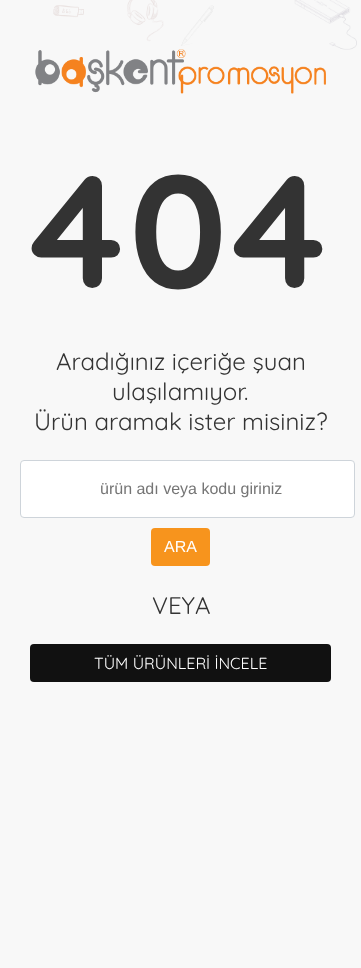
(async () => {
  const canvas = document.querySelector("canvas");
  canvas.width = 361;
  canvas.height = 968;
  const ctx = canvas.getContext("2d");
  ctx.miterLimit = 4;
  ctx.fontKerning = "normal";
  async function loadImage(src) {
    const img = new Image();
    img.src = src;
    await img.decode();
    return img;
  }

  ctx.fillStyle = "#f8f8f8";
  ctx.fillRect(0, 0, 361, 968);
  ctx.drawImage(await loadImage("img/1.png"), 53, 0, 304, 50);
  ctx.drawImage(await loadImage("img/2.png"), 35, 49, 291, 45);
  ctx.fillStyle = "#ffffff";
  ctx.beginPath();
  ctx.roundRect(20.5, 460.5, 334, 57, 3.5);
  ctx.fill();
  ctx.strokeStyle = "#ced4da";
  ctx.stroke();
  ctx.fillStyle = "#f7941d";
  ctx.beginPath();
  ctx.roundRect(151, 528, 59, 38, 4);
  ctx.fill();
  ctx.fillStyle = "#111111";
  ctx.beginPath();
  ctx.roundRect(30, 644, 301, 38, 4);
  ctx.fill();
  ctx.letterSpacing = "5px";
  ctx.font = "bold 160px Quicksand";
  ctx.fillStyle = "#333333";
  ctx.fillText("404", 30, 288);
  ctx.letterSpacing = "0px";
  ctx.font = "24px Quicksand";
  for (const [text, x, y] of [
    ["Aradığınız içeriğe şuan", 56, 370],
    ["ulaşılamıyor.", 112, 400],
    ["Ürün aramak ister misiniz?", 34, 430],
  ]) {
    ctx.fillText(text, x, y);
  }
  ctx.font = "16px Liberation Sans";
  ctx.fillStyle = "#757575";
  ctx.fillText("ürün adı veya kodu giriniz", 100, 494);
  ctx.fillStyle = "#ffffff";
  ctx.fillText("ARA", 164, 552);
  ctx.font = "24px Quicksand";
  ctx.fillStyle = "#333333";
  ctx.fillText("VEYA", 152, 614);
  ctx.font = "16px Quicksand";
  ctx.fillStyle = "#ffffff";
  ctx.fillText("TÜM ÜRÜNLERİ İNCELE", 94, 669);
})();
